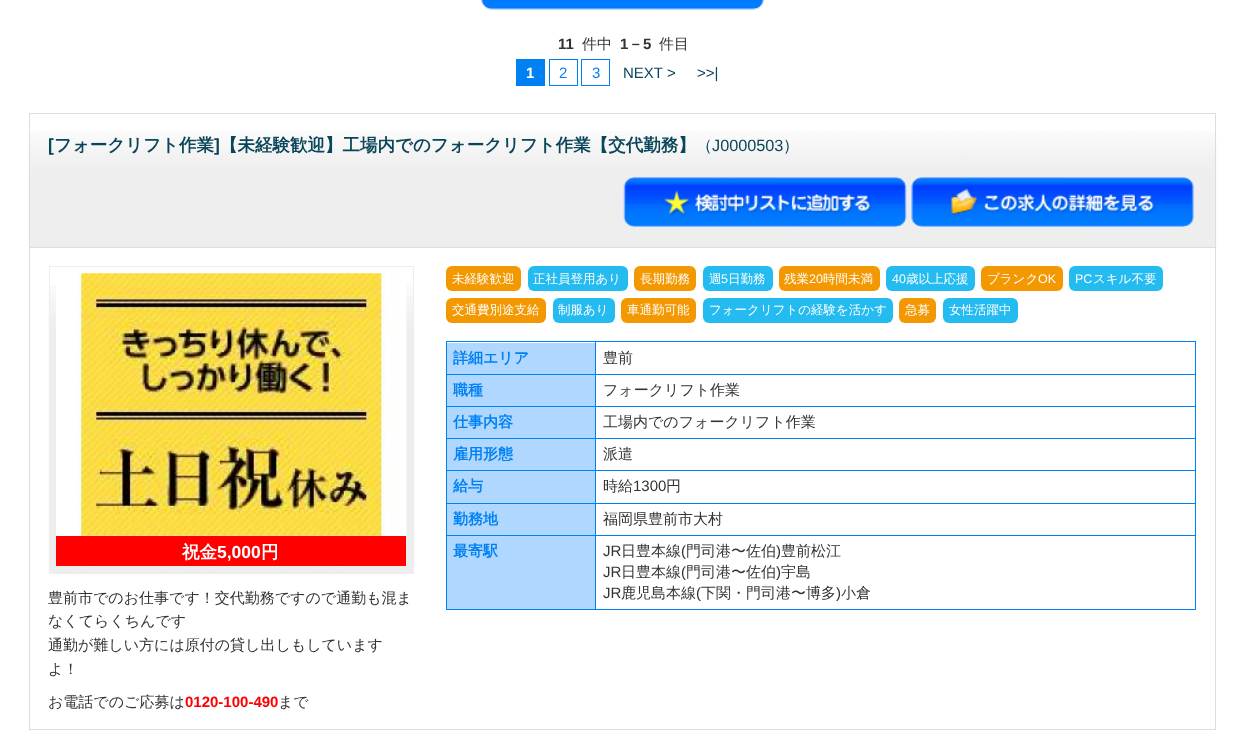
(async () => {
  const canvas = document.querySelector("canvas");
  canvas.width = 1243;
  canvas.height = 752;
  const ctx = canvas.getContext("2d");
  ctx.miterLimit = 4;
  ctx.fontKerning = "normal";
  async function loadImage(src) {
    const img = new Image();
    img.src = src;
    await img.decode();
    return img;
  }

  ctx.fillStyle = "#ffffff";
  ctx.fillRect(0, 0, 1243, 752);
  ctx.drawImage(await loadImage("img/1.png"), 481, 0, 283, 10);
  ctx.fillStyle = "#0081f3";
  ctx.fillRect(516, 59, 29, 27);
  ctx.strokeStyle = "#0081f3";
  ctx.strokeRect(549.5, 59.5, 28, 26);
  ctx.strokeRect(581.5, 59.5, 28, 26);
  ctx.drawImage(await loadImage("img/2.png"), 28, 131, 1189, 116);
  ctx.strokeStyle = "#dddddd";
  ctx.strokeRect(29.5, 113.5, 1186, 134);
  ctx.drawImage(await loadImage("img/3.png"), 623, 177, 284, 50);
  ctx.drawImage(await loadImage("img/4.png"), 911, 177, 283, 50);
  for (const [x, y, w, h, color] of [
    [1215, 248, 1, 482, "#dddddd"],
    [29, 729, 1187, 1, "#dddddd"],
    [29, 248, 1, 482, "#dddddd"],
  ]) {
    ctx.fillStyle = color;
    ctx.fillRect(x, y, w, h);
  }
  ctx.fillStyle = "#f39800";
  ctx.beginPath();
  ctx.roundRect(446, 266, 75, 25, 6);
  ctx.fill();
  ctx.fillStyle = "#24bbf1";
  ctx.beginPath();
  ctx.roundRect(528, 266, 100, 25, 6);
  ctx.fill();
  ctx.fillStyle = "#f39800";
  ctx.beginPath();
  ctx.roundRect(634, 266, 62, 25, 6);
  ctx.fill();
  ctx.fillStyle = "#24bbf1";
  ctx.beginPath();
  ctx.roundRect(703, 266, 70, 25, 6);
  ctx.fill();
  ctx.fillStyle = "#f39800";
  ctx.beginPath();
  ctx.roundRect(779, 266, 101, 25, 6);
  ctx.fill();
  ctx.fillStyle = "#24bbf1";
  ctx.beginPath();
  ctx.roundRect(886, 266, 89, 25, 6);
  ctx.fill();
  ctx.fillStyle = "#f39800";
  ctx.beginPath();
  ctx.roundRect(981, 266, 82, 25, 6);
  ctx.fill();
  ctx.fillStyle = "#24bbf1";
  ctx.beginPath();
  ctx.roundRect(1069, 266, 94, 25, 6);
  ctx.fill();
  ctx.fillStyle = "#f39800";
  ctx.beginPath();
  ctx.roundRect(446, 298, 100, 25, 6);
  ctx.fill();
  ctx.fillStyle = "#24bbf1";
  ctx.beginPath();
  ctx.roundRect(553, 298, 62, 25, 6);
  ctx.fill();
  ctx.fillStyle = "#f39800";
  ctx.beginPath();
  ctx.roundRect(621, 298, 75, 25, 6);
  ctx.fill();
  ctx.fillStyle = "#24bbf1";
  ctx.beginPath();
  ctx.roundRect(703, 298, 190, 25, 6);
  ctx.fill();
  ctx.fillStyle = "#f39800";
  ctx.beginPath();
  ctx.roundRect(899, 298, 37, 25, 6);
  ctx.fill();
  ctx.fillStyle = "#24bbf1";
  ctx.beginPath();
  ctx.roundRect(943, 298, 75, 25, 6);
  ctx.fill();
  for (const [x, y, w, h, color] of [
    [446, 341, 750, 1, "#0081f3"],
    [1195, 341, 1, 269, "#0081f3"],
    [446, 609, 750, 1, "#0081f3"],
    [446, 341, 1, 269, "#0081f3"],
    [447, 343, 148, 31, "#afd7ff"],
    [595, 535, 1, 75, "#0081f3"],
    [595, 535, 601, 1, "#0081f3"],
    [595, 503, 1, 33, "#0081f3"],
    [595, 503, 601, 1, "#0081f3"],
    [595, 470, 1, 34, "#0081f3"],
    [595, 470, 601, 1, "#0081f3"],
    [595, 438, 1, 33, "#0081f3"],
    [595, 438, 601, 1, "#0081f3"],
    [595, 406, 1, 33, "#0081f3"],
    [595, 406, 601, 1, "#0081f3"],
    [595, 374, 1, 34, "#0081f3"],
    [595, 374, 601, 1, "#0081f3"],
    [595, 341, 1, 34, "#0081f3"],
    [446, 374, 150, 1, "#0081f3"],
    [447, 375, 148, 31, "#afd7ff"],
    [446, 406, 150, 1, "#0081f3"],
    [447, 407, 148, 31, "#afd7ff"],
    [446, 438, 150, 1, "#0081f3"],
    [447, 439, 148, 31, "#afd7ff"],
    [446, 470, 150, 1, "#0081f3"],
    [447, 471, 148, 32, "#afd7ff"],
    [446, 503, 150, 1, "#0081f3"],
    [447, 504, 148, 31, "#afd7ff"],
    [446, 535, 150, 1, "#0081f3"],
    [447, 536, 148, 73, "#afd7ff"],
  ]) {
    ctx.fillStyle = color;
    ctx.fillRect(x, y, w, h);
  }
  ctx.drawImage(await loadImage("img/5.png"), 48, 285, 365, 289);
  ctx.strokeStyle = "#eeeeee";
  ctx.strokeRect(49.5, 266.5, 364, 307);
  ctx.drawImage(await loadImage("img/6.png"), 56, 273, 351, 263);
  ctx.drawImage(await loadImage("img/7.png"), 56, 273, 351, 263);
  ctx.fillStyle = "#ff0000";
  ctx.fillRect(56, 536, 350, 30);
  ctx.font = "bold 15px Liberation Sans";
  ctx.fillStyle = "#333333";
  ctx.fillText("11", 558, 49);
  ctx.font = "500 15px WenQuanYi Zen Hei";
  ctx.fillText("件中", 582, 49);
  ctx.font = "bold 15px Liberation Sans";
  ctx.fillText("1", 620, 49);
  ctx.font = "bold 15px WenQuanYi Zen Hei";
  ctx.fillText("－", 628, 49);
  ctx.font = "bold 15px Liberation Sans";
  ctx.fillText("5", 643, 49);
  ctx.font = "500 15px WenQuanYi Zen Hei";
  ctx.fillText("件目", 659, 49);
  ctx.font = "bold 15px Liberation Sans";
  ctx.fillStyle = "#ffffff";
  ctx.fillText("1", 526, 78);
  ctx.font = "15px Liberation Sans";
  ctx.fillStyle = "#0081f3";
  ctx.fillText("2", 559, 78);
  ctx.fillText("3", 592, 78);
  ctx.fillStyle = "#0a465a";
  ctx.fillText("NEXT >", 623, 78);
  ctx.fillText(">>|", 697, 78);
  ctx.font = "bold 17.5px Liberation Sans";
  ctx.fillText("[", 48, 151);
  ctx.font = "bold 17.5px WenQuanYi Zen Hei";
  ctx.fillText("フォークリフト作業", 54, 151);
  ctx.font = "bold 17.5px Liberation Sans";
  ctx.fillText("]", 214, 151);
  ctx.font = "bold 17.5px WenQuanYi Zen Hei";
  ctx.fillText("【未経験歓迎】工場内でのフォークリフト作業【交代勤務】", 220, 151);
  ctx.font = "500 16.25px WenQuanYi Zen Hei";
  ctx.fillText("（", 696, 151);
  ctx.font = "16.25px Liberation Sans";
  ctx.fillText("J0000503", 712, 151);
  ctx.font = "500 16.25px WenQuanYi Zen Hei";
  ctx.fillText("）", 783, 151);
  ctx.font = "500 12.5px WenQuanYi Zen Hei";
  ctx.fillStyle = "#ffffff";
  for (const [text, x, y] of [
    ["未経験歓迎", 452, 283],
    ["正社員登用あり", 533, 283],
    ["長期勤務", 640, 283],
    ["週", 709, 283],
  ]) {
    ctx.fillText(text, x, y);
  }
  ctx.font = "12.5px Liberation Sans";
  ctx.fillText("5", 721, 283);
  ctx.font = "500 12.5px WenQuanYi Zen Hei";
  ctx.fillText("日勤務", 728, 283);
  ctx.fillText("残業", 784, 283);
  ctx.font = "12.5px Liberation Sans";
  ctx.fillText("20", 809, 283);
  ctx.font = "500 12.5px WenQuanYi Zen Hei";
  ctx.fillText("時間未満", 823, 283);
  ctx.font = "12.5px Liberation Sans";
  ctx.fillText("40", 892, 283);
  ctx.font = "500 12.5px WenQuanYi Zen Hei";
  ctx.fillText("歳以上応援", 906, 283);
  ctx.fillText("ブランク", 987, 283);
  ctx.font = "12.5px Liberation Sans";
  ctx.fillText("OK", 1038, 283);
  ctx.fillText("PC", 1075, 283);
  ctx.font = "500 12.5px WenQuanYi Zen Hei";
  for (const [text, x, y] of [
    ["スキル不要", 1093, 283],
    ["交通費別途支給", 452, 314],
    ["制服あり", 558, 314],
    ["車通勤可能", 627, 314],
    ["フォークリフトの経験を活かす", 709, 314],
    ["急募", 905, 314],
    ["女性活躍中", 949, 314],
  ]) {
    ctx.fillText(text, x, y);
  }
  ctx.font = "bold 15px WenQuanYi Zen Hei";
  ctx.fillStyle = "#0081f3";
  ctx.fillText("詳細エリア", 453, 363);
  ctx.font = "500 15px WenQuanYi Zen Hei";
  ctx.fillStyle = "#333333";
  ctx.fillText("豊前", 603, 363);
  ctx.font = "bold 15px WenQuanYi Zen Hei";
  ctx.fillStyle = "#0081f3";
  ctx.fillText("職種", 453, 395);
  ctx.font = "500 15px WenQuanYi Zen Hei";
  ctx.fillStyle = "#333333";
  ctx.fillText("フォークリフト作業", 603, 395);
  ctx.font = "bold 15px WenQuanYi Zen Hei";
  ctx.fillStyle = "#0081f3";
  ctx.fillText("仕事内容", 453, 427);
  ctx.font = "500 15px WenQuanYi Zen Hei";
  ctx.fillStyle = "#333333";
  ctx.fillText("工場内でのフォークリフト作業", 603, 427);
  ctx.font = "bold 15px WenQuanYi Zen Hei";
  ctx.fillStyle = "#0081f3";
  ctx.fillText("雇用形態", 453, 459);
  ctx.font = "500 15px WenQuanYi Zen Hei";
  ctx.fillStyle = "#333333";
  ctx.fillText("派遣", 603, 459);
  ctx.font = "bold 15px WenQuanYi Zen Hei";
  ctx.fillStyle = "#0081f3";
  ctx.fillText("給与", 453, 491);
  ctx.font = "500 15px WenQuanYi Zen Hei";
  ctx.fillStyle = "#333333";
  ctx.fillText("時給", 603, 491);
  ctx.font = "15px Liberation Sans";
  ctx.fillText("1300", 633, 491);
  ctx.font = "500 15px WenQuanYi Zen Hei";
  ctx.fillText("円", 666, 491);
  ctx.font = "bold 15px WenQuanYi Zen Hei";
  ctx.fillStyle = "#0081f3";
  ctx.fillText("勤務地", 453, 524);
  ctx.font = "500 15px WenQuanYi Zen Hei";
  ctx.fillStyle = "#333333";
  ctx.fillText("福岡県豊前市大村", 603, 524);
  ctx.font = "bold 15px WenQuanYi Zen Hei";
  ctx.fillStyle = "#0081f3";
  ctx.fillText("最寄駅", 453, 556);
  ctx.font = "15px Liberation Sans";
  ctx.fillStyle = "#333333";
  ctx.fillText("JR", 603, 556);
  ctx.font = "500 15px WenQuanYi Zen Hei";
  ctx.fillText("日豊本線", 621, 556);
  ctx.font = "15px Liberation Sans";
  ctx.fillText("(", 681, 556);
  ctx.font = "500 15px WenQuanYi Zen Hei";
  ctx.fillText("門司港〜佐伯", 686, 556);
  ctx.font = "15px Liberation Sans";
  ctx.fillText(")", 776, 556);
  ctx.font = "500 15px WenQuanYi Zen Hei";
  ctx.fillText("豊前松江", 781, 556);
  ctx.font = "15px Liberation Sans";
  ctx.fillText("JR", 603, 577);
  ctx.font = "500 15px WenQuanYi Zen Hei";
  ctx.fillText("日豊本線", 621, 577);
  ctx.font = "15px Liberation Sans";
  ctx.fillText("(", 681, 577);
  ctx.font = "500 15px WenQuanYi Zen Hei";
  ctx.fillText("門司港〜佐伯", 686, 577);
  ctx.font = "15px Liberation Sans";
  ctx.fillText(")", 776, 577);
  ctx.font = "500 15px WenQuanYi Zen Hei";
  ctx.fillText("宇島", 781, 577);
  ctx.font = "15px Liberation Sans";
  ctx.fillText("JR", 603, 598);
  ctx.font = "500 15px WenQuanYi Zen Hei";
  ctx.fillText("鹿児島本線", 621, 598);
  ctx.font = "15px Liberation Sans";
  ctx.fillText("(", 696, 598);
  ctx.font = "500 15px WenQuanYi Zen Hei";
  ctx.fillText("下関・門司港〜博多", 701, 598);
  ctx.font = "15px Liberation Sans";
  ctx.fillText(")", 836, 598);
  ctx.font = "500 15px WenQuanYi Zen Hei";
  ctx.fillText("小倉", 841, 598);
  ctx.font = "bold 17.5px WenQuanYi Zen Hei";
  ctx.fillStyle = "#ffffff";
  ctx.fillText("祝金", 182, 558);
  ctx.font = "bold 17.5px Liberation Sans";
  ctx.fillText("5,000", 217, 558);
  ctx.font = "bold 17.5px WenQuanYi Zen Hei";
  ctx.fillText("円", 261, 558);
  ctx.font = "500 15px WenQuanYi Zen Hei";
  ctx.fillStyle = "#333333";
  for (const [text, x, y] of [
    ["豊前市でのお仕事です！交代勤務ですので通勤も混ま", 48, 603],
    ["なくてらくちんです", 48, 626],
    ["通勤が難しい方には原付の貸し出しもしています", 48, 650],
    ["よ！", 48, 674],
    ["お電話でのご応募は", 48, 707],
  ]) {
    ctx.fillText(text, x, y);
  }
  ctx.font = "bold 15px Liberation Sans";
  ctx.fillStyle = "#ff0000";
  ctx.fillText("0120-100-490", 185, 707);
  ctx.font = "500 15px WenQuanYi Zen Hei";
  ctx.fillStyle = "#333333";
  ctx.fillText("まで", 278, 707);
})();
